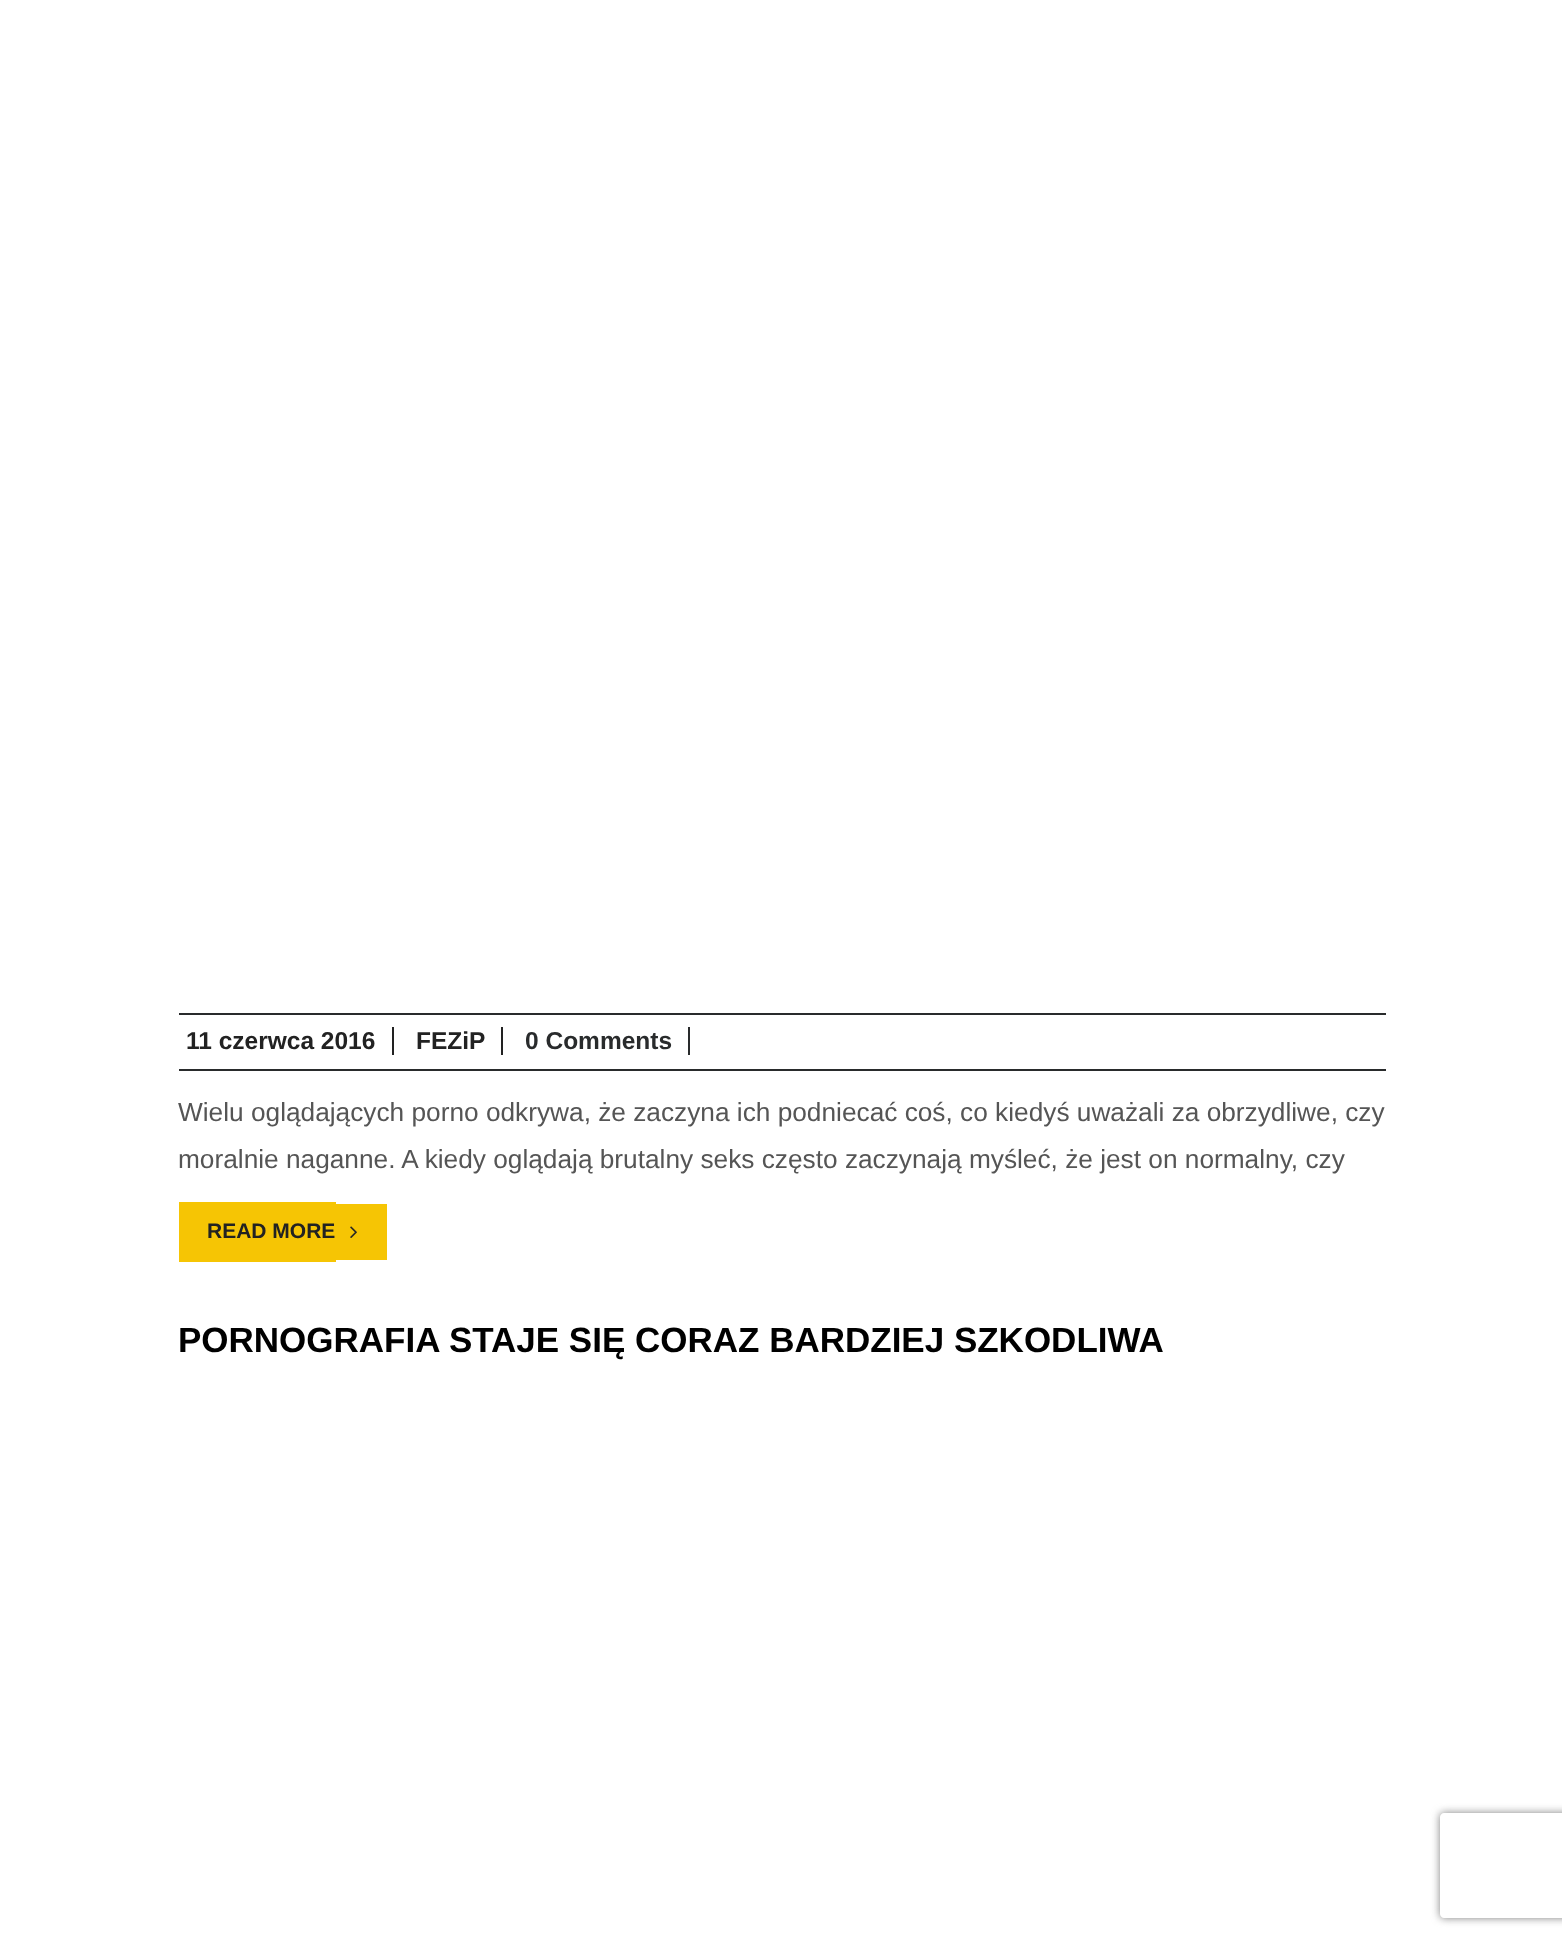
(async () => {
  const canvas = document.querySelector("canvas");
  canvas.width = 1562;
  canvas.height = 1941;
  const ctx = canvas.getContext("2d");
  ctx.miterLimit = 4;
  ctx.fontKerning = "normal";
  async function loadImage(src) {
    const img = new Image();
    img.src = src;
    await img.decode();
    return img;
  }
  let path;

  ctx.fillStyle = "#ffffff";
  ctx.fillRect(0, 0, 1562, 1941);
  for (const [x, y, w, h, color] of [
    [179, 1013, 1207, 2, "#292b2c"],
    [179, 1069, 1207, 2, "#292b2c"],
    [392, 1027, 2, 28, "#222222"],
    [501, 1027, 2, 28, "#222222"],
    [688, 1027, 2, 28, "#292b2c"],
    [179, 1202, 157, 60, "#f6c504"],
    [336, 1204, 51, 56, "#f6c504"],
  ]) {
    ctx.fillStyle = color;
    ctx.fillRect(x, y, w, h);
  }
  ctx.drawImage(await loadImage("img/1.png"), 350, 1226, 7, 12);
  ctx.save();
  path = new Path2D("M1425 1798H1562V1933H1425ZM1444 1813H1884C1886 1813 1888 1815 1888 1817V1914C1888 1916 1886 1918 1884 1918H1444C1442 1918 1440 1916 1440 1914V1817C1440 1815 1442 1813 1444 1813Z");
  ctx.clip(path, "evenodd");
  ctx.fillStyle = "#808080";
  ctx.filter = "blur(4.5px)";
  ctx.beginPath();
  ctx.roundRect(1440, 1813, 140, 105, 4);
  ctx.fill();
  ctx.filter = "none";
  ctx.restore();
  ctx.font = "bold 24.5px Liberation Sans";
  ctx.fillStyle = "#222222";
  ctx.fillText("11 czerwca 2016", 186, 1049);
  ctx.fillText("FEZiP", 416, 1049);
  ctx.fillStyle = "#292b2c";
  ctx.fillText("0 Comments", 525, 1049);
  ctx.font = "26.25px Liberation Sans";
  ctx.fillStyle = "#555555";
  ctx.fillText("Wielu oglądających porno odkrywa, że zaczyna ich podniecać coś, co kiedyś uważali za obrzydliwe, czy", 178, 1121);
  ctx.fillText("moralnie naganne. A kiedy oglądają brutalny seks często zaczynają myśleć, że jest on normalny, czy", 178, 1168);
  ctx.font = "bold 21px Liberation Sans";
  ctx.fillStyle = "#222222";
  ctx.fillText("READ MORE", 207, 1238);
  ctx.font = "bold 35px Liberation Sans";
  ctx.fillStyle = "#000000";
  ctx.fillText("PORNOGRAFIA STAJE SIĘ CORAZ BARDZIEJ SZKODLIWA", 178, 1352);
})();
